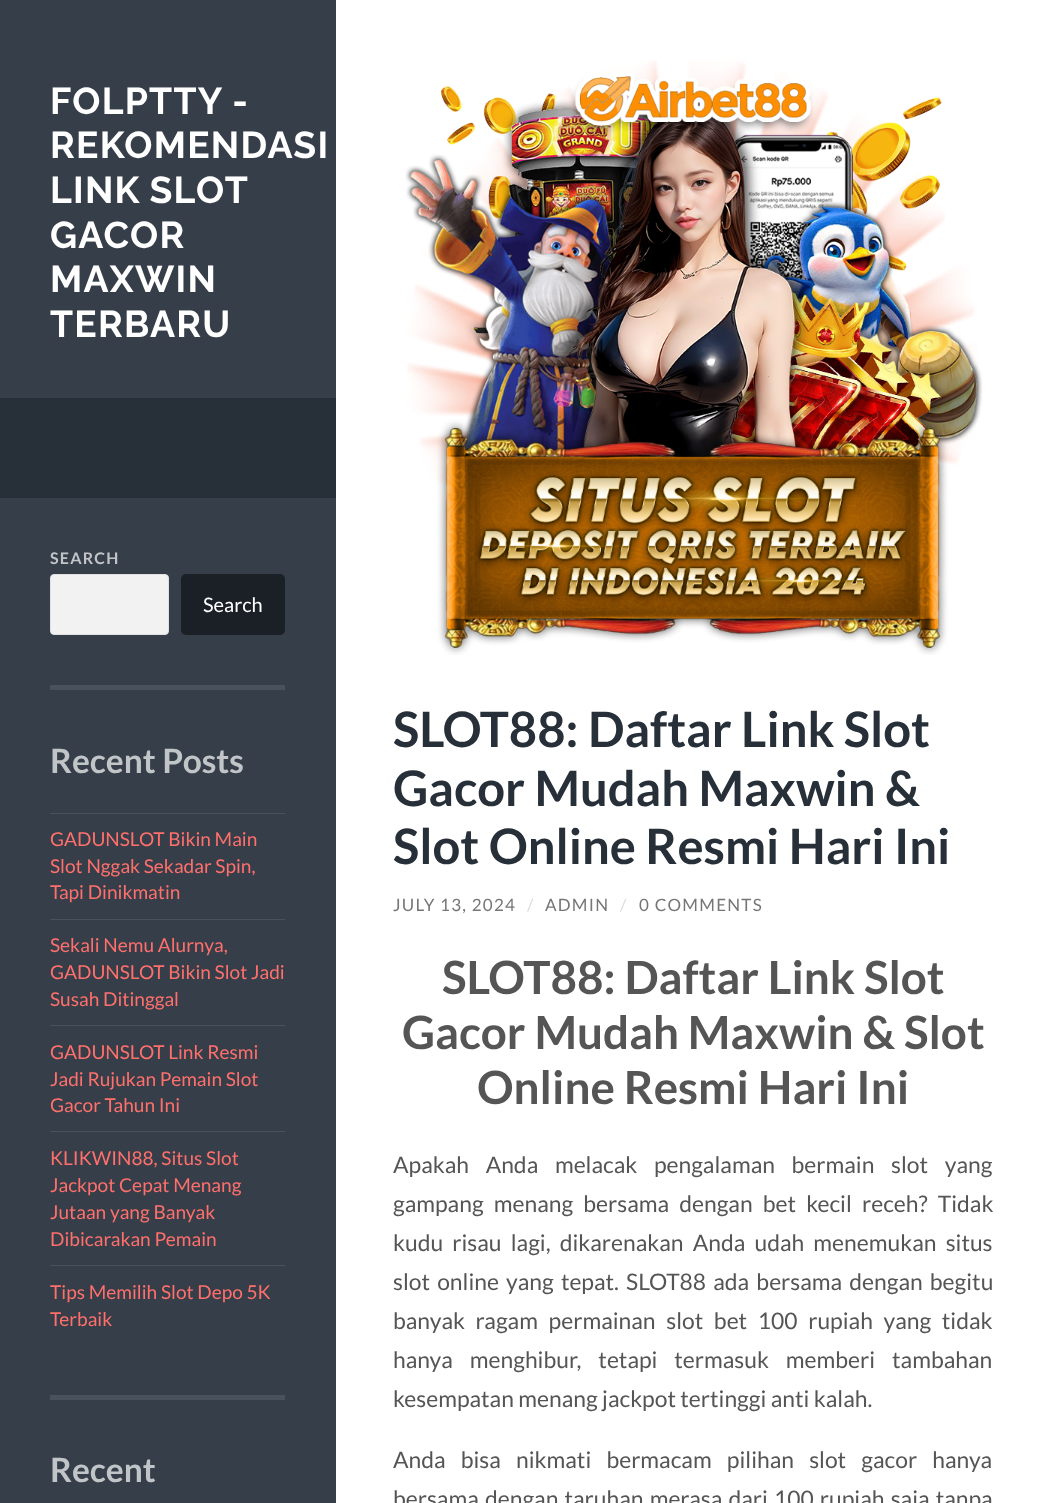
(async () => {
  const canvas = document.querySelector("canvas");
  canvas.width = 1050;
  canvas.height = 1503;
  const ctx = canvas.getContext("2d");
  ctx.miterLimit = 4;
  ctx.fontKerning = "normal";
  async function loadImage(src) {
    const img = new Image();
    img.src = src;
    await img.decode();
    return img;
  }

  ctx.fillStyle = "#353e49";
  ctx.fillRect(0, 0, 1050, 1503);
  ctx.fillStyle = "#272f38";
  ctx.fillRect(0, 398, 336, 100);
  ctx.fillStyle = "#49515b";
  ctx.fillRect(50, 685, 235, 5);
  ctx.fillStyle = "#f2f2f2";
  ctx.beginPath();
  ctx.roundRect(50.5, 574.5, 118, 60, 3.5);
  ctx.fill();
  ctx.strokeStyle = "#e1e1e3";
  ctx.stroke();
  ctx.fillStyle = "#1b2027";
  ctx.beginPath();
  ctx.roundRect(181, 574, 104, 61, 5);
  ctx.fill();
  for (const [x, y, w, h, color] of [
    [50, 1395, 235, 5, "#49515b"],
    [50, 813, 235, 1, "#49515b"],
    [50, 919, 235, 1, "#49515b"],
    [50, 1025, 235, 1, "#49515b"],
    [50, 1131, 235, 1, "#49515b"],
    [50, 1265, 235, 1, "#49515b"],
    [336, 0, 714, 1503, "#ffffff"],
  ]) {
    ctx.fillStyle = color;
    ctx.fillRect(x, y, w, h);
  }
  ctx.drawImage(await loadImage("img/1.png"), 405, 60, 578, 595);
  ctx.letterSpacing = "1.25px";
  ctx.font = "100 37.25px Raleway";
  ctx.fillText("FOLPTTY -", 50, 114);
  ctx.fillText("REKOMENDASI", 50, 158);
  ctx.wordSpacing = "-1px";
  ctx.fillText("LINK SLOT", 50, 203);
  ctx.wordSpacing = "0px";
  for (const [text, x, y] of [
    ["GACOR", 50, 248],
    ["MAXWIN", 50, 292],
    ["TERBARU", 50, 337],
  ]) {
    ctx.fillText(text, x, y);
  }
  ctx.font = "bold 16px Lato";
  ctx.fillStyle = "#c2c5c8";
  ctx.fillText("SEARCH", 50, 564);
  ctx.letterSpacing = "0px";
  ctx.font = "20px Lato";
  ctx.fillStyle = "#ffffff";
  ctx.fillText("Search", 203, 612);
  ctx.font = "bold 33.5px Lato";
  ctx.fillStyle = "#c2c5c8";
  ctx.fillText("Recent Posts", 50, 773);
  ctx.font = "19.1px Lato";
  ctx.fillStyle = "#ff706c";
  for (const [text, x, y] of [
    ["GADUNSLOT Bikin Main", 50, 846],
    ["Slot Nggak Sekadar Spin,", 50, 873],
    ["Tapi Dinikmatin", 50, 899],
    ["Sekali Nemu Alurnya,", 50, 952],
    ["GADUNSLOT Bikin Slot Jadi", 50, 979],
    ["Susah Ditinggal", 50, 1006],
    ["GADUNSLOT Link Resmi", 50, 1059],
    ["Jadi Rujukan Pemain Slot", 50, 1086],
    ["Gacor Tahun Ini", 50, 1112],
    ["KLIKWIN88, Situs Slot", 50, 1165],
    ["Jackpot Cepat Menang", 50, 1192],
    ["Jutaan yang Banyak", 50, 1219],
    ["Dibicarakan Pemain", 50, 1246],
    ["Tips Memilih Slot Depo 5K", 50, 1299],
    ["Terbaik", 50, 1326],
  ]) {
    ctx.fillText(text, x, y);
  }
  ctx.font = "bold 33.5px Lato";
  ctx.fillStyle = "#c2c5c8";
  ctx.fillText("Recent", 50, 1482);
  ctx.font = "bold 48.9px Lato";
  ctx.fillStyle = "#272f38";
  for (const [text, x, y] of [
    ["SLOT88: Daftar Link Slot", 393, 747],
    ["Gacor Mudah Maxwin &", 393, 806],
    ["Slot Online Resmi Hari Ini", 393, 864],
  ]) {
    ctx.fillText(text, x, y);
  }
  ctx.letterSpacing = "1.25px";
  ctx.font = "17px Lato";
  ctx.fillStyle = "#767676";
  ctx.fillText("JULY 13, 2024", 393, 911);
  ctx.fillStyle = "#dddddd";
  ctx.fillText("/", 527, 911);
  ctx.fillStyle = "#767676";
  ctx.fillText("ADMIN", 545, 911);
  ctx.fillStyle = "#dddddd";
  ctx.fillText("/", 620, 911);
  ctx.fillStyle = "#767676";
  ctx.fillText("0 COMMENTS", 639, 911);
  ctx.letterSpacing = "0px";
  ctx.font = "bold 45.75px Lato";
  ctx.fillStyle = "#555555";
  for (const [text, x, y] of [
    ["SLOT88: Daftar Link Slot", 442, 994],
    ["Gacor Mudah Maxwin & Slot", 402, 1049],
    ["Online Resmi Hari Ini", 477, 1104],
  ]) {
    ctx.fillText(text, x, y);
  }
  ctx.wordSpacing = "12.25px";
  ctx.font = "22.85px Lato";
  ctx.fillText("Apakah Anda melacak pengalaman bermain slot yang", 393, 1173);
  ctx.wordSpacing = "5.75px";
  ctx.fillText("gampang menang bersama dengan bet kecil receh? Tidak", 393, 1212);
  ctx.wordSpacing = "4.75px";
  ctx.fillText("kudu risau lagi, dikarenakan Anda udah menemukan situs", 393, 1251);
  ctx.wordSpacing = "2.75px";
  ctx.fillText("slot online yang tepat. SLOT88 ada bersama dengan begitu", 393, 1290);
  ctx.wordSpacing = "6.25px";
  ctx.fillText("banyak ragam permainan slot bet 100 rupiah yang tidak", 393, 1329);
  ctx.wordSpacing = "12.5px";
  ctx.fillText("hanya menghibur, tetapi termasuk memberi tambahan", 393, 1368);
  ctx.wordSpacing = "0px";
  ctx.fillText("kesempatan menang jackpot tertinggi anti kalah.", 393, 1407);
  ctx.wordSpacing = "10.75px";
  ctx.fillText("Anda bisa nikmati bermacam pilihan slot gacor hanya", 393, 1468);
  ctx.wordSpacing = "1.75px";
  ctx.fillText("bersama dengan taruhan merasa dari 100 rupiah saja tanpa", 393, 1507);
})();
